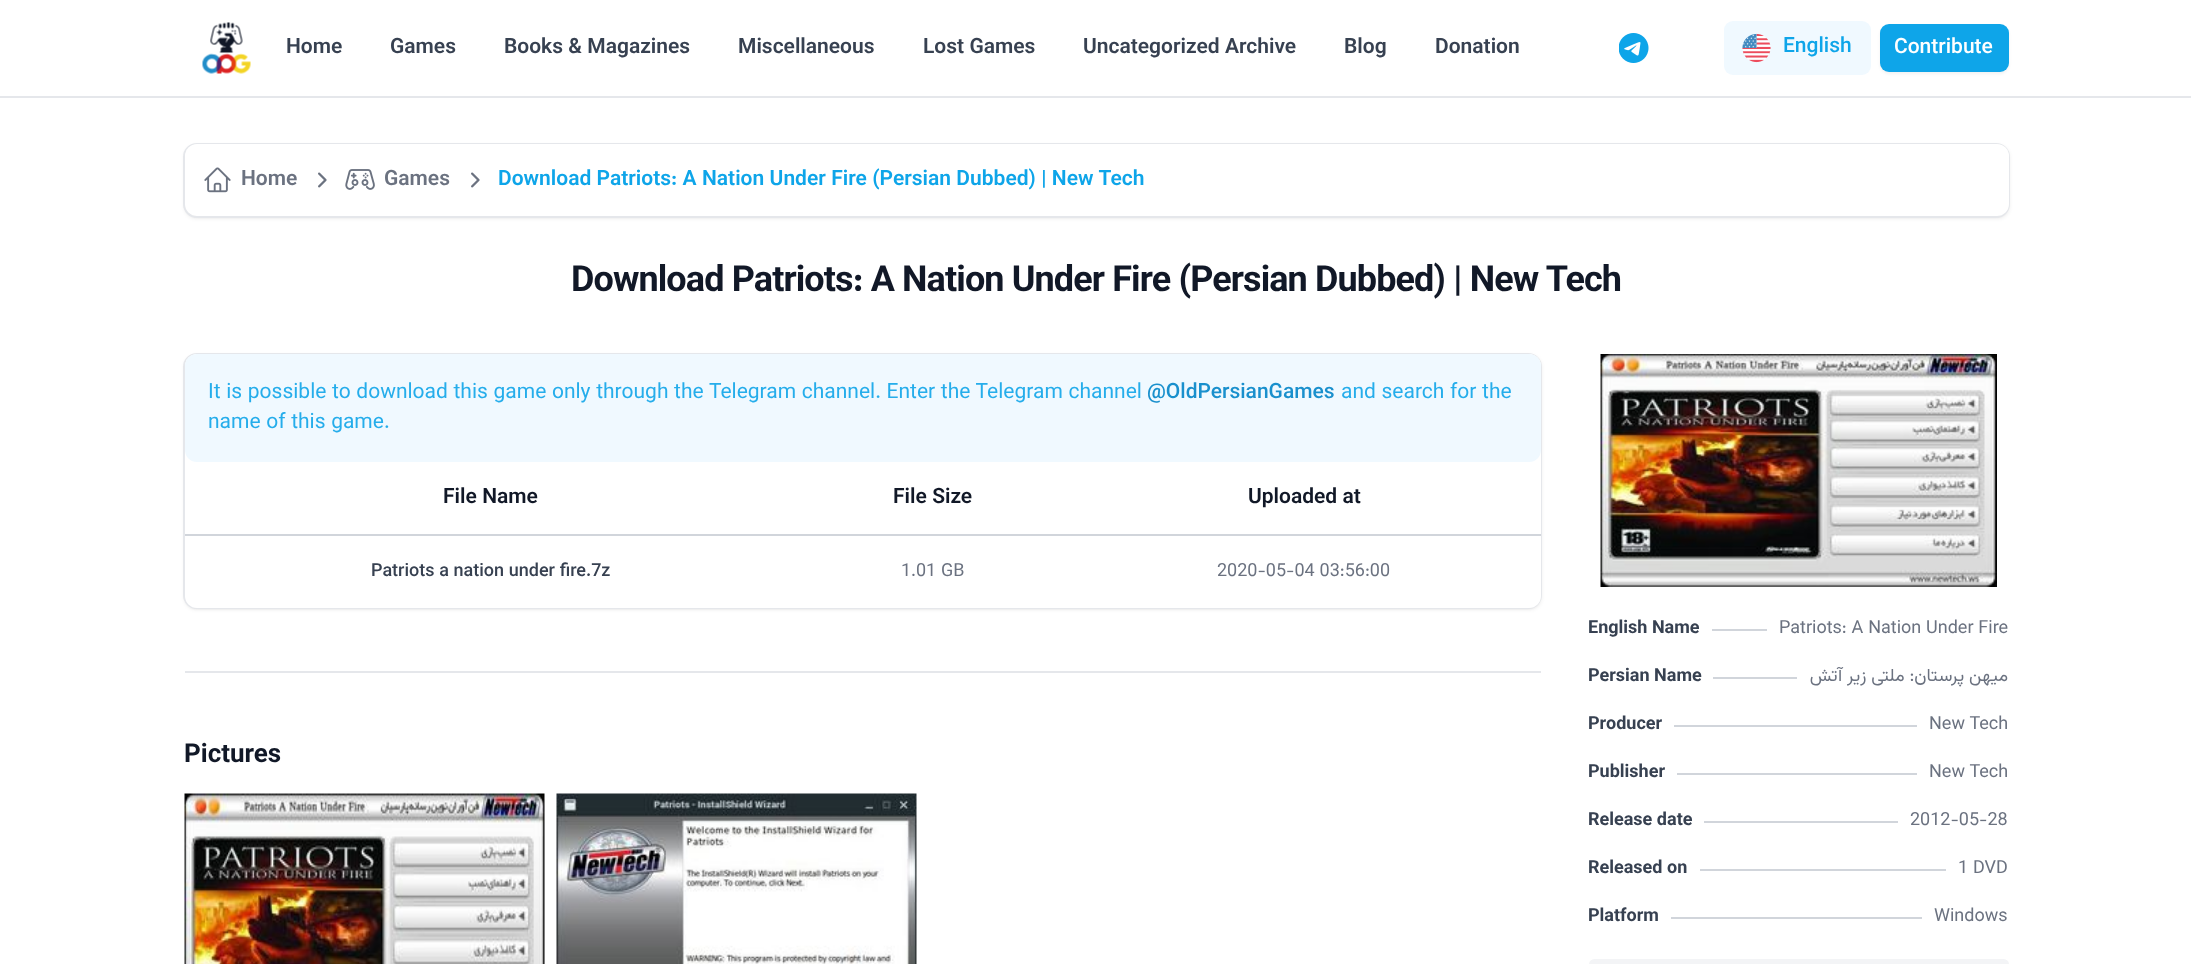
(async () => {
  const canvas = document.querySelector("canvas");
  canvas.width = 2191;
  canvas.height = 964;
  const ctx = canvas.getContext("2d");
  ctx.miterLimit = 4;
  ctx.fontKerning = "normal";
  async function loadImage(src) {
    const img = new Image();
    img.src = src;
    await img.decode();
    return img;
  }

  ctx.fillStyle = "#ffffff";
  ctx.fillRect(0, 0, 2191, 964);
  ctx.fillStyle = "#e5e7eb";
  ctx.fillRect(0, 96, 2191, 2);
  ctx.drawImage(await loadImage("img/1.png"), 202, 22, 49, 52);
  ctx.drawImage(await loadImage("img/2.png"), 1619, 33, 30, 30);
  ctx.fillStyle = "#f0f9ff";
  ctx.beginPath();
  ctx.roundRect(1724, 21, 147, 54, 9);
  ctx.fill();
  ctx.drawImage(await loadImage("img/3.png"), 1742, 33, 29, 30);
  ctx.fillStyle = "rgba(0, 0, 0, 0.05)";
  ctx.filter = "blur(1.5px)";
  ctx.beginPath();
  ctx.roundRect(1880, 26, 129, 48, 9);
  ctx.fill();
  ctx.filter = "none";
  ctx.fillStyle = "#0ea5e9";
  ctx.beginPath();
  ctx.roundRect(1880, 24, 129, 48, 9);
  ctx.fill();
  ctx.fillStyle = "rgba(0, 0, 0, 0.1)";
  ctx.filter = "blur(1.5px)";
  ctx.beginPath();
  ctx.roundRect(186, 147, 1821, 69, 11);
  ctx.fill();
  ctx.filter = "none";
  ctx.filter = "blur(2px)";
  ctx.beginPath();
  ctx.roundRect(185, 146, 1824, 72, 12);
  ctx.fill();
  ctx.filter = "none";
  ctx.beginPath();
  ctx.roundRect(184, 144, 1825, 73, 13);
  ctx.strokeStyle = "#e5e7eb";
  ctx.lineWidth = 2;
  ctx.stroke();
  ctx.fillStyle = "#ffffff";
  ctx.beginPath();
  ctx.roundRect(185, 144, 1824, 72, 12);
  ctx.fill();
  ctx.drawImage(await loadImage("img/4.png"), 204, 167, 27, 26);
  ctx.drawImage(await loadImage("img/5.png"), 318, 172, 9, 16);
  ctx.drawImage(await loadImage("img/6.png"), 345, 169, 30, 21);
  ctx.drawImage(await loadImage("img/5.png"), 471, 172, 9, 16);
  ctx.fillStyle = "rgba(0, 0, 0, 0.1)";
  ctx.filter = "blur(1.5px)";
  ctx.beginPath();
  ctx.roundRect(186, 357, 1353, 251, 11);
  ctx.fill();
  ctx.filter = "none";
  ctx.filter = "blur(2px)";
  ctx.beginPath();
  ctx.roundRect(185, 356, 1356, 253, 12);
  ctx.fill();
  ctx.filter = "none";
  ctx.beginPath();
  ctx.roundRect(184, 354, 1357, 254, 13);
  ctx.stroke();
  ctx.fillStyle = "#ffffff";
  ctx.beginPath();
  ctx.roundRect(185, 354, 1356, 254, 12);
  ctx.fill();
  ctx.fillStyle = "#f0f9ff";
  ctx.beginPath();
  ctx.roundRect(185, 354, 1356, 108, 12);
  ctx.fill();
  ctx.fillStyle = "#d1d5db";
  ctx.fillRect(185, 534, 1356, 2);
  ctx.fillStyle = "#e5e7eb";
  ctx.fillRect(185, 671, 1356, 2);
  ctx.drawImage(await loadImage("img/7.png"), 184, 793, 361, 171);
  ctx.drawImage(await loadImage("img/8.png"), 556, 793, 361, 171);
  ctx.drawImage(await loadImage("img/9.png"), 1600, 354, 397, 233);
  for (const [x, y, w, h, color] of [
    [1712, 629, 55, 2, "#d1d5db"],
    [1713, 677, 84, 2, "#d1d5db"],
    [1674, 725, 243, 2, "#d1d5db"],
    [1677, 773, 240, 2, "#d1d5db"],
    [1704, 821, 194, 2, "#d1d5db"],
    [1700, 869, 246, 2, "#d1d5db"],
    [1671, 917, 251, 2, "#d1d5db"],
  ]) {
    ctx.fillStyle = color;
    ctx.fillRect(x, y, w, h);
  }
  ctx.fillStyle = "#f3f4f6";
  ctx.beginPath();
  ctx.roundRect(1589, 959, 420, 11, 6);
  ctx.fill();
  ctx.font = "600 21px Vazirmatn";
  ctx.fillStyle = "#374151";
  for (const [text, x, y] of [
    ["Home", 286, 53],
    ["Games", 390, 53],
    ["Books & Magazines", 504, 53],
    ["Miscellaneous", 738, 53],
    ["Lost Games", 923, 53],
    ["Uncategorized Archive", 1083, 53],
    ["Blog", 1344, 53],
    ["Donation", 1435, 53],
  ]) {
    ctx.fillText(text, x, y);
  }
  ctx.font = "500 21px Vazirmatn";
  ctx.fillStyle = "#0ea5e9";
  ctx.fillText("English", 1783, 52);
  ctx.fillStyle = "#ffffff";
  ctx.fillText("Contribute", 1894, 53);
  ctx.font = "600 21px Vazirmatn";
  ctx.fillStyle = "#6b7280";
  ctx.fillText("Home", 241, 185);
  ctx.fillText("Games", 384, 185);
  ctx.fillStyle = "#0ea5e9";
  ctx.fillText("Download Patriots: A Nation Under Fire (Persian Dubbed) | New Tech", 498, 185);
  ctx.letterSpacing = "-0.9px";
  ctx.font = "bold 36px Vazirmatn";
  ctx.fillStyle = "#111827";
  ctx.fillText("Download Patriots: A Nation Under Fire (Persian Dubbed) | New Tech", 571, 291);
  ctx.letterSpacing = "0px";
  ctx.font = "21px Vazirmatn";
  ctx.fillStyle = "#25adeb";
  ctx.fillText("It is possible to download this game only through the Telegram channel. Enter the Telegram channel", 208, 398);
  ctx.font = "500 21px Vazirmatn";
  ctx.fillStyle = "#1a90cd";
  ctx.fillText("@OldPersianGames", 1147, 398);
  ctx.font = "21px Vazirmatn";
  ctx.fillStyle = "#25adeb";
  ctx.fillText("and search for the", 1341, 398);
  ctx.fillText("name of this game.", 208, 428);
  ctx.font = "600 21px Vazirmatn";
  ctx.fillStyle = "#111827";
  for (const [text, x, y] of [
    ["File Name", 443, 503],
    ["File Size", 893, 503],
    ["Uploaded at", 1248, 503],
  ]) {
    ctx.fillText(text, x, y);
  }
  ctx.font = "500 18px Vazirmatn";
  ctx.fillStyle = "#374151";
  ctx.fillText("Patriots a nation under fire.7z", 371, 576);
  ctx.font = "18px Vazirmatn";
  ctx.fillStyle = "#6b7280";
  ctx.fillText("1.01 GB", 901, 576);
  ctx.fillText("2020-05-04 03:56:00", 1217, 576);
  ctx.font = "bold 26px Vazirmatn";
  ctx.fillStyle = "#111827";
  ctx.fillText("Pictures", 184, 762);
  ctx.font = "bold 18px Vazirmatn";
  ctx.fillStyle = "#374151";
  ctx.fillText("English Name", 1588, 633);
  ctx.font = "18px Vazirmatn";
  ctx.fillStyle = "#6b7280";
  ctx.fillText("Patriots: A Nation Under Fire", 1779, 633);
  ctx.font = "bold 18px Vazirmatn";
  ctx.fillStyle = "#374151";
  ctx.fillText("Persian Name", 1588, 681);
  ctx.direction = "rtl";
  ctx.font = "18px Vazirmatn";
  ctx.fillStyle = "#6b7280";
  ctx.fillText("میهن پرستان: ملتی زیر آتش", 2008, 681);
  ctx.direction = "ltr";
  ctx.font = "bold 18px Vazirmatn";
  ctx.fillStyle = "#374151";
  ctx.fillText("Producer", 1588, 729);
  ctx.font = "18px Vazirmatn";
  ctx.fillStyle = "#6b7280";
  ctx.fillText("New Tech", 1929, 729);
  ctx.font = "bold 18px Vazirmatn";
  ctx.fillStyle = "#374151";
  ctx.fillText("Publisher", 1588, 777);
  ctx.font = "18px Vazirmatn";
  ctx.fillStyle = "#6b7280";
  ctx.fillText("New Tech", 1929, 777);
  ctx.font = "bold 18px Vazirmatn";
  ctx.fillStyle = "#374151";
  ctx.fillText("Release date", 1588, 825);
  ctx.font = "18px Vazirmatn";
  ctx.fillStyle = "#6b7280";
  ctx.fillText("2012-05-28", 1910, 825);
  ctx.font = "bold 18px Vazirmatn";
  ctx.fillStyle = "#374151";
  ctx.fillText("Released on", 1588, 873);
  ctx.font = "18px Vazirmatn";
  ctx.fillStyle = "#6b7280";
  ctx.fillText("1 DVD", 1958, 873);
  ctx.font = "bold 18px Vazirmatn";
  ctx.fillStyle = "#374151";
  ctx.fillText("Platform", 1588, 921);
  ctx.font = "18px Vazirmatn";
  ctx.fillStyle = "#6b7280";
  ctx.fillText("Windows", 1934, 921);
})();
